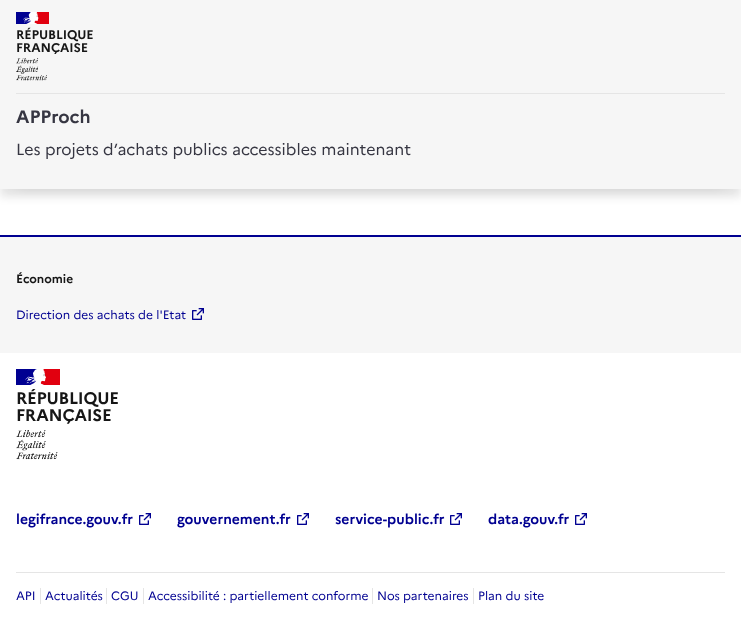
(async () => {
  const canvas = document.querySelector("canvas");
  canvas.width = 741;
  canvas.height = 633;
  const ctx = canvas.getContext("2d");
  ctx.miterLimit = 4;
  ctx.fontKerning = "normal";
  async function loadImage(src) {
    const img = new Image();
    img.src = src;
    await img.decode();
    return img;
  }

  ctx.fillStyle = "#ffffff";
  ctx.fillRect(0, 0, 741, 633);
  ctx.fillStyle = "rgba(0, 0, 0, 0.32)";
  ctx.filter = "blur(8px)";
  ctx.beginPath();
  ctx.rect(16, 24, 709, 157);
  ctx.fill();
  ctx.filter = "none";
  ctx.fillStyle = "rgba(0, 0, 0, 0.1)";
  ctx.filter = "blur(4px)";
  ctx.beginPath();
  ctx.rect(0, 8, 741, 189);
  ctx.fill();
  ctx.filter = "none";
  for (const [x, y, w, h, color] of [
    [0, 0, 741, 189, "#f6f6f6"],
    [16, 12, 16, 12, "#000091"],
    [34, 12, 15, 12, "#e1000f"],
  ]) {
    ctx.fillStyle = color;
    ctx.fillRect(x, y, w, h);
  }
  ctx.drawImage(await loadImage("img/1.png"), 23, 12, 16, 12);
  ctx.drawImage(await loadImage("img/2.png"), 16, 58, 31, 23);
  for (const [x, y, w, h, color] of [
    [16, 93, 709, 1, "#e5e5e5"],
    [0, 235, 741, 2, "#000091"],
    [0, 237, 741, 116, "#f6f6f6"],
  ]) {
    ctx.fillStyle = color;
    ctx.fillRect(x, y, w, h);
  }
  ctx.drawImage(await loadImage("img/3.png"), 192, 308, 12, 12);
  ctx.fillStyle = "#000091";
  ctx.fillRect(16, 369, 22, 16);
  ctx.fillStyle = "#e1000f";
  ctx.fillRect(40, 369, 20, 16);
  ctx.drawImage(await loadImage("img/4.png"), 25, 369, 21, 16);
  ctx.drawImage(await loadImage("img/5.png"), 16, 430, 42, 30);
  ctx.drawImage(await loadImage("img/6.png"), 139, 513, 12, 12);
  ctx.drawImage(await loadImage("img/6.png"), 297, 513, 12, 12);
  ctx.drawImage(await loadImage("img/6.png"), 450, 513, 12, 12);
  ctx.drawImage(await loadImage("img/6.png"), 575, 513, 12, 12);
  for (const [x, y, w, h, color] of [
    [16, 572, 709, 1, "#e5e5e5"],
    [40, 588, 1, 16, "#e5e5e5"],
    [106, 588, 1, 16, "#e5e5e5"],
    [143, 588, 1, 16, "#e5e5e5"],
    [372, 588, 1, 16, "#e5e5e5"],
    [473, 588, 1, 16, "#e5e5e5"],
  ]) {
    ctx.fillStyle = color;
    ctx.fillRect(x, y, w, h);
  }
  ctx.letterSpacing = "-0.1px";
  ctx.font = "bold 12.5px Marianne";
  ctx.fillStyle = "#161616";
  ctx.fillText("RÉPUBLIQUE", 16, 39);
  ctx.fillText("FRANÇAISE", 16, 52);
  ctx.letterSpacing = "0px";
  ctx.font = "bold 18px Marianne";
  ctx.fillStyle = "#363642";
  ctx.fillText("APProch", 16, 123);
  ctx.font = "16px Marianne";
  ctx.fillText("Les projets d’achats publics accessibles maintenant", 16, 155);
  ctx.font = "bold 12px Marianne";
  ctx.fillStyle = "#161616";
  ctx.fillText("Économie", 16, 283);
  ctx.font = "12px Marianne";
  ctx.fillStyle = "#000091";
  ctx.fillText("Direction des achats de l'Etat", 16, 319);
  ctx.letterSpacing = "-0.25px";
  ctx.font = "bold 16.75px Marianne";
  ctx.fillStyle = "#161616";
  ctx.fillText("RÉPUBLIQUE", 16, 404);
  ctx.fillText("FRANÇAISE", 16, 421);
  ctx.letterSpacing = "0px";
  ctx.font = "bold 14px Marianne";
  ctx.fillStyle = "#000091";
  for (const [text, x, y] of [
    ["legifrance.gouv.fr", 16, 524],
    ["gouvernement.fr", 177, 524],
    ["service-public.fr", 335, 524],
    ["data.gouv.fr", 488, 524],
  ]) {
    ctx.fillText(text, x, y);
  }
  ctx.font = "12px Marianne";
  for (const [text, x, y] of [
    ["API", 16, 600],
    ["Actualités", 45, 600],
    ["CGU", 111, 600],
    ["Accessibilité : partiellement conforme", 148, 600],
    ["Nos partenaires", 377, 600],
    ["Plan du site", 478, 600],
  ]) {
    ctx.fillText(text, x, y);
  }
})();
